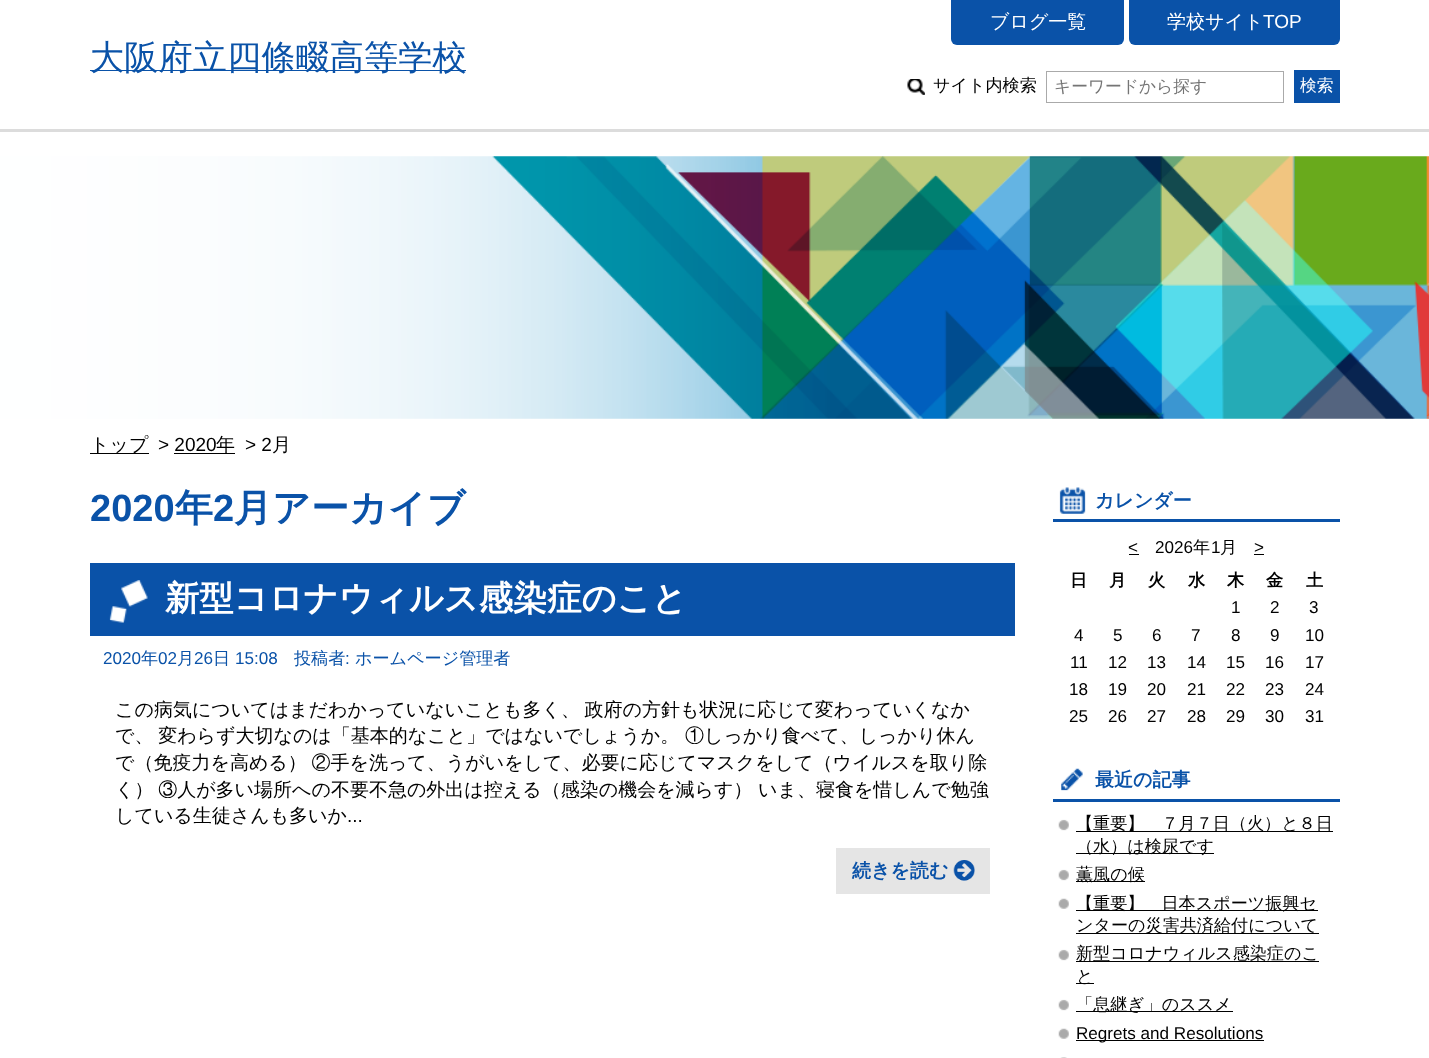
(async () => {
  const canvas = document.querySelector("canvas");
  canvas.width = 1429;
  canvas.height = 1058;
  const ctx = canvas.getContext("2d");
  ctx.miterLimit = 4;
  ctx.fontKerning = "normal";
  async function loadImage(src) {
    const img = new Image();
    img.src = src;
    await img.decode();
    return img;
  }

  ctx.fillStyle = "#ffffff";
  ctx.fillRect(0, 0, 1429, 1058);
  ctx.fillStyle = "#dcdcdc";
  ctx.fillRect(0, 129, 1429, 3);
  ctx.fillStyle = "#0a52a8";
  ctx.fillRect(90, 70, 376, 1);
  ctx.beginPath();
  ctx.roundRect(951, 0, 173, 45, [0, 0, 6, 6]);
  ctx.fill();
  ctx.beginPath();
  ctx.roundRect(1129, 0, 211, 45, [0, 0, 6, 6]);
  ctx.fill();
  ctx.drawImage(await loadImage("img/1.png"), 907, 79, 18, 16);
  ctx.strokeStyle = "#aaaaaa";
  ctx.strokeRect(1046.5, 71.5, 237, 31);
  ctx.fillRect(1294, 70, 46, 33);
  ctx.drawImage(await loadImage("img/2.png"), 0, 156, 1429, 263);
  for (const [x, y, w, h, color] of [
    [90, 453, 59, 1, "#000000"],
    [174, 453, 61, 1, "#000000"],
    [90, 563, 925, 73, "#0a52a8"],
  ]) {
    ctx.fillStyle = color;
    ctx.fillRect(x, y, w, h);
  }
  ctx.drawImage(await loadImage("img/3.png"), 109, 580, 39, 43);
  ctx.fillStyle = "#e5e5e5";
  ctx.fillRect(836, 848, 154, 46);
  ctx.drawImage(await loadImage("img/4.png"), 953, 860, 22, 21);
  ctx.drawImage(await loadImage("img/5.png"), 1059, 487, 27, 27);
  for (const [x, y, w, h, color] of [
    [1053, 519, 287, 3, "#0a52a8"],
    [1129, 554, 10, 1, "#000000"],
    [1254, 554, 10, 1, "#000000"],
  ]) {
    ctx.fillStyle = color;
    ctx.fillRect(x, y, w, h);
  }
  ctx.drawImage(await loadImage("img/6.png"), 1061, 768, 22, 23);
  ctx.fillStyle = "#0a52a8";
  ctx.fillRect(1053, 799, 287, 3);
  ctx.drawImage(await loadImage("img/7.png"), 1058, 819, 11, 12);
  ctx.fillStyle = "#000000";
  ctx.fillRect(1076, 831, 257, 1);
  ctx.fillRect(1076, 853, 138, 1);
  ctx.drawImage(await loadImage("img/7.png"), 1058, 869, 11, 12);
  ctx.fillRect(1076, 881, 69, 1);
  ctx.drawImage(await loadImage("img/8.png"), 1058, 898, 11, 11);
  ctx.fillRect(1076, 910, 242, 1);
  ctx.fillRect(1076, 933, 243, 1);
  ctx.drawImage(await loadImage("img/7.png"), 1058, 949, 11, 12);
  ctx.fillRect(1076, 961, 243, 1);
  ctx.fillRect(1076, 983, 18, 1);
  ctx.drawImage(await loadImage("img/7.png"), 1058, 999, 11, 12);
  ctx.fillRect(1076, 1011, 157, 1);
  ctx.drawImage(await loadImage("img/8.png"), 1058, 1028, 11, 11);
  ctx.fillRect(1076, 1040, 188, 1);
  ctx.drawImage(await loadImage("img/9.png"), 1060, 1057, 7, 1);
  ctx.font = "500 34.25px WenQuanYi Zen Hei";
  ctx.fillStyle = "#0a52a8";
  ctx.fillText("大阪府立四條畷高等学校", 90, 69);
  ctx.font = "500 19px WenQuanYi Zen Hei";
  ctx.fillStyle = "#ffffff";
  ctx.fillText("ブログ一覧", 990, 28);
  ctx.fillText("学校サイト", 1167, 28);
  ctx.font = "19px Liberation Sans";
  ctx.fillText("TOP", 1263, 28);
  ctx.font = "500 17.1px WenQuanYi Zen Hei";
  ctx.fillStyle = "#000000";
  ctx.fillText("サイト内検索", 933, 91);
  ctx.font = "500 16.75px WenQuanYi Zen Hei";
  ctx.fillStyle = "#757575";
  ctx.fillText("キーワードから探す", 1054, 92);
  ctx.fillStyle = "#ffffff";
  ctx.fillText("検索", 1300, 91);
  ctx.font = "500 19px WenQuanYi Zen Hei";
  ctx.fillStyle = "#000000";
  ctx.fillText("トップ", 90, 451);
  ctx.font = "19px Liberation Sans";
  ctx.fillText("> 2020", 158, 451);
  ctx.font = "500 19px WenQuanYi Zen Hei";
  ctx.fillText("年", 216, 451);
  ctx.font = "19px Liberation Sans";
  ctx.fillText("> 2", 245, 451);
  ctx.font = "500 19px WenQuanYi Zen Hei";
  ctx.fillText("月", 272, 451);
  ctx.font = "bold 38px Liberation Sans";
  ctx.fillStyle = "#0a52a8";
  ctx.fillText("2020", 90, 521);
  ctx.font = "bold 38px WenQuanYi Zen Hei";
  ctx.fillText("年", 175, 521);
  ctx.font = "bold 38px Liberation Sans";
  ctx.fillText("2", 213, 521);
  ctx.font = "bold 38px WenQuanYi Zen Hei";
  ctx.fillText("月アーカイブ", 234, 521);
  ctx.font = "bold 34.25px WenQuanYi Zen Hei";
  ctx.fillStyle = "#ffffff";
  ctx.fillText("新型コロナウィルス感染症のこと", 165, 610);
  ctx.font = "17.1px Liberation Sans";
  ctx.fillStyle = "#0a52a8";
  ctx.fillText("2020", 103, 664);
  ctx.font = "500 17.1px WenQuanYi Zen Hei";
  ctx.fillText("年", 141, 664);
  ctx.font = "17.1px Liberation Sans";
  ctx.fillText("02", 158, 664);
  ctx.font = "500 17.1px WenQuanYi Zen Hei";
  ctx.fillText("月", 177, 664);
  ctx.font = "17.1px Liberation Sans";
  ctx.fillText("26", 194, 664);
  ctx.font = "500 17.1px WenQuanYi Zen Hei";
  ctx.fillText("日", 213, 664);
  ctx.font = "17.1px Liberation Sans";
  ctx.fillText("15:08", 235, 664);
  ctx.font = "500 17.1px WenQuanYi Zen Hei";
  ctx.fillText("投稿者", 294, 664);
  ctx.font = "17.1px Liberation Sans";
  ctx.fillText(":", 345, 664);
  ctx.font = "500 17.1px WenQuanYi Zen Hei";
  ctx.fillText("ホームページ管理者", 355, 664);
  ctx.wordSpacing = "-1px";
  ctx.font = "500 19px WenQuanYi Zen Hei";
  ctx.fillStyle = "#000000";
  ctx.fillText("この病気についてはまだわかっていないことも多く、 政府の方針も状況に応じて変わっていくなか", 115, 716);
  ctx.fillText("で、 変わらず大切なのは「基本的なこと」ではないでしょうか。", 115, 742);
  ctx.wordSpacing = "0px";
  ctx.fillText("①しっかり食べて、しっかり休ん", 685, 742);
  ctx.wordSpacing = "-1px";
  ctx.fillText("で（免疫力を高める） ②手を洗って、うがいをして、必要に応じてマスクをして（ウイルスを取り除", 115, 769);
  ctx.fillText("く） ③人が多い場所への不要不急の外出は控える（感染の機会を減らす）", 115, 796);
  ctx.wordSpacing = "0px";
  ctx.fillText("いま、寝食を惜しんで勉強", 758, 796);
  ctx.fillText("している生徒さんも多いか", 115, 822);
  ctx.font = "19px Liberation Sans";
  ctx.fillText("...", 347, 822);
  ctx.font = "bold 19px WenQuanYi Zen Hei";
  ctx.fillStyle = "#0a52a8";
  ctx.fillText("続きを読む", 852, 877);
  ctx.fillText("カレンダー", 1095, 507);
  ctx.font = "17.1px Liberation Sans";
  ctx.fillStyle = "#000000";
  ctx.fillText("<", 1128, 553);
  ctx.fillText("2026", 1155, 553);
  ctx.font = "500 17.1px WenQuanYi Zen Hei";
  ctx.fillText("年", 1193, 553);
  ctx.font = "17.1px Liberation Sans";
  ctx.fillText("1", 1211, 553);
  ctx.font = "500 17.1px WenQuanYi Zen Hei";
  ctx.fillText("月", 1220, 553);
  ctx.font = "17.1px Liberation Sans";
  ctx.fillText(">", 1254, 553);
  ctx.font = "bold 17.1px WenQuanYi Zen Hei";
  for (const [text, x, y] of [
    ["日", 1070, 586],
    ["月", 1109, 586],
    ["火", 1148, 586],
    ["水", 1188, 586],
    ["木", 1227, 586],
    ["金", 1266, 586],
    ["土", 1306, 586],
  ]) {
    ctx.fillText(text, x, y);
  }
  ctx.font = "17.1px Liberation Sans";
  for (const [text, x, y] of [
    ["1", 1231, 613],
    ["2", 1270, 613],
    ["3", 1309, 613],
    ["4", 1074, 641],
    ["5", 1113, 641],
    ["6", 1152, 641],
    ["7", 1191, 641],
    ["8", 1231, 641],
    ["9", 1270, 641],
    ["10", 1305, 641],
    ["11", 1070, 668],
    ["12", 1108, 668],
    ["13", 1147, 668],
    ["14", 1187, 668],
    ["15", 1226, 668],
    ["16", 1265, 668],
    ["17", 1305, 668],
    ["18", 1069, 695],
    ["19", 1108, 695],
    ["20", 1147, 695],
    ["21", 1187, 695],
    ["22", 1226, 695],
    ["23", 1265, 695],
    ["24", 1305, 695],
    ["25", 1069, 722],
    ["26", 1108, 722],
    ["27", 1147, 722],
    ["28", 1187, 722],
    ["29", 1226, 722],
    ["30", 1265, 722],
    ["31", 1305, 722],
  ]) {
    ctx.fillText(text, x, y);
  }
  ctx.font = "bold 19px WenQuanYi Zen Hei";
  ctx.fillStyle = "#0a52a8";
  ctx.fillText("最近の記事", 1095, 786);
  ctx.font = "500 17.1px WenQuanYi Zen Hei";
  ctx.fillStyle = "#000000";
  for (const [text, x, y] of [
    ["【重要】　７月７日（火）と８日", 1076, 829],
    ["（水）は検尿です", 1076, 852],
    ["薫風の候", 1076, 880],
    ["【重要】　日本スポーツ振興セ", 1076, 909],
    ["ンターの災害共済給付について", 1076, 931],
    ["新型コロナウィルス感染症のこ", 1076, 959],
    ["と", 1076, 982],
    ["「息継ぎ」のススメ", 1076, 1010],
  ]) {
    ctx.fillText(text, x, y);
  }
  ctx.font = "17.1px Liberation Sans";
  ctx.fillText("Regrets and Resolutions", 1076, 1039);
})();
